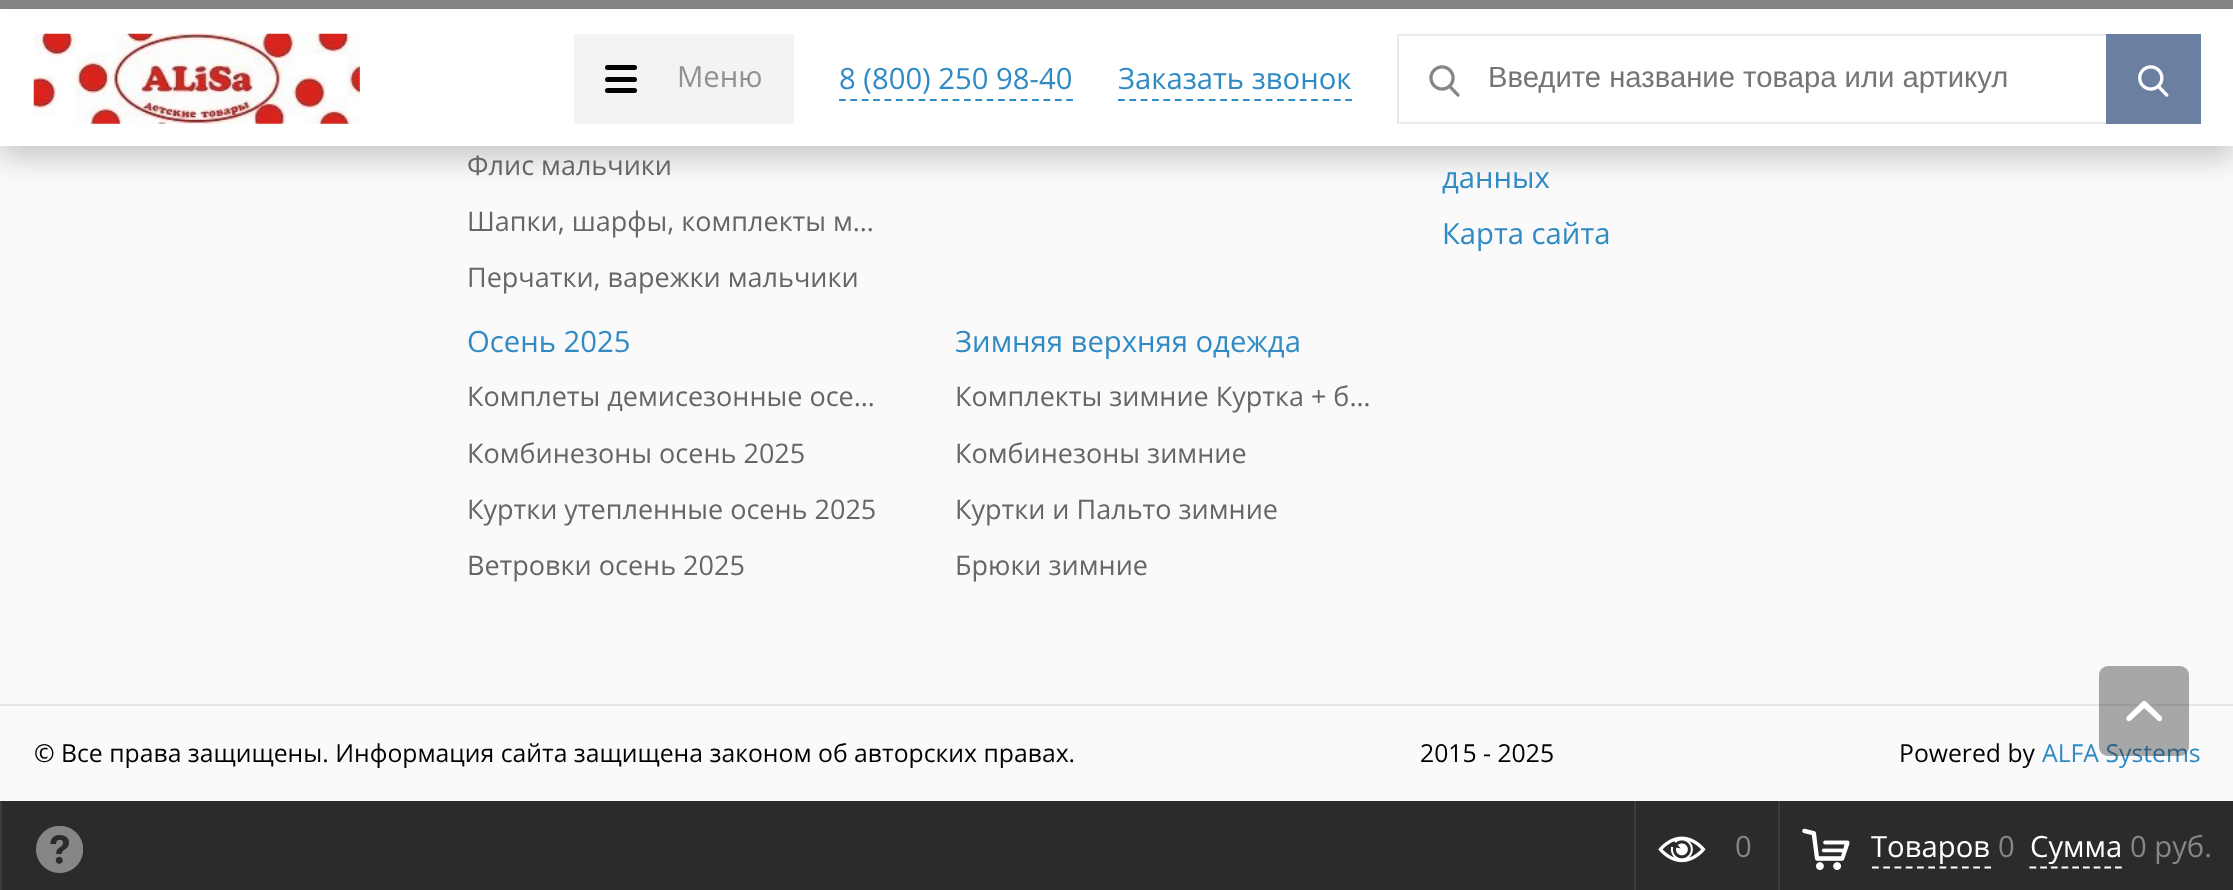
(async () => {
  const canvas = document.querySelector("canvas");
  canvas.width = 2233;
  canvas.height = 890;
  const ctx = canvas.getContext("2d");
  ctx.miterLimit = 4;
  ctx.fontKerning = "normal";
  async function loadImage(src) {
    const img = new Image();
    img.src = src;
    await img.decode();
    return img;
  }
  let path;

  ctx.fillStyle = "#fafafa";
  ctx.fillRect(0, 0, 2233, 890);
  ctx.fillStyle = "#888585";
  ctx.fillRect(0, 0, 2233, 9);
  ctx.fillStyle = "rgba(0, 0, 0, 0.18)";
  ctx.filter = "blur(13.5px)";
  ctx.beginPath();
  ctx.rect(0, 23, 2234, 137);
  ctx.fill();
  ctx.filter = "none";
  ctx.fillStyle = "#ffffff";
  ctx.fillRect(0, 9, 2233, 137);
  ctx.drawImage(await loadImage("img/1.png"), 33, 33, 327, 91);
  ctx.fillStyle = "#f3f3f3";
  ctx.fillRect(574, 34, 220, 90);
  ctx.fillStyle = "#000000";
  ctx.beginPath();
  ctx.roundRect(605, 65, 32, 5, 2.5);
  ctx.fill();
  ctx.beginPath();
  ctx.roundRect(605, 77, 32, 5, 2.5);
  ctx.fill();
  ctx.beginPath();
  ctx.roundRect(605, 88, 32, 5, 2.5);
  ctx.fill();
  path = new Path2D("M839 100H1073");
  ctx.strokeStyle = "#308ac4";
  ctx.lineWidth = 2.2;
  ctx.setLineDash([6.75, 4.61]);
  ctx.stroke(path);
  path = new Path2D("M1118 100H1352");
  ctx.stroke(path);
  for (const [x, y, w, h, color] of [
    [1397, 34, 709, 2, "#ebebeb"],
    [1397, 122, 709, 2, "#ebebeb"],
    [1397, 34, 2, 90, "#ebebeb"],
  ]) {
    ctx.fillStyle = color;
    ctx.fillRect(x, y, w, h);
  }
  ctx.drawImage(await loadImage("img/2.png"), 1429, 65, 31, 32);
  ctx.fillStyle = "#6b80a0";
  ctx.fillRect(2106, 34, 95, 90);
  ctx.drawImage(await loadImage("img/3.png"), 2138, 65, 31, 32);
  for (const [x, y, w, h, color] of [
    [0, 704, 2233, 2, "#e5e5e5"],
    [2, 801, 2231, 89, "#2b2b2b"],
    [0, 801, 2, 89, "#3c3c3c"],
  ]) {
    ctx.fillStyle = color;
    ctx.fillRect(x, y, w, h);
  }
  ctx.drawImage(await loadImage("img/5.png"), 36, 826, 47, 47);
  ctx.fillRect(1634, 801, 2, 89);
  ctx.drawImage(await loadImage("img/6.png"), 1658, 836, 48, 27);
  ctx.fillRect(1778, 801, 2, 89);
  ctx.drawImage(await loadImage("img/7.png"), 1802, 828, 48, 42);
  path = new Path2D("M1872 867.5H1991");
  ctx.strokeStyle = "#ffffff";
  ctx.setLineDash([6.75, 4.5]);
  ctx.stroke(path);
  path = new Path2D("M2029.5 867.5H2122");
  ctx.setLineDash([6.75, 3.94]);
  ctx.stroke(path);
  ctx.font = "29.25px Open Sans";
  ctx.fillStyle = "#91918f";
  ctx.fillText("Меню", 677, 87);
  ctx.fillStyle = "#308ac4";
  ctx.fillText("8 (800) 250 98-40", 839, 89);
  ctx.fillText("Заказать звонок", 1118, 89);
  ctx.font = "29.25px Liberation Sans";
  ctx.fillStyle = "#757575";
  ctx.fillText("Введите название товара или артикул", 1488, 87);
  ctx.font = "27px Open Sans";
  ctx.fillStyle = "#666666";
  for (const [text, x, y] of [
    ["Флис мальчики", 467, 175],
    ["Шапки, шарфы, комплекты м…", 467, 231],
    ["Перчатки, варежки мальчики", 467, 287],
  ]) {
    ctx.fillText(text, x, y);
  }
  ctx.font = "29.25px Open Sans";
  ctx.fillStyle = "#308ac4";
  ctx.fillText("Осень 2025", 467, 352);
  ctx.font = "27px Open Sans";
  ctx.fillStyle = "#666666";
  for (const [text, x, y] of [
    ["Комплеты демисезонные осе…", 467, 406],
    ["Комбинезоны осень 2025", 467, 463],
    ["Куртки утепленные осень 2025", 467, 519],
    ["Ветровки осень 2025", 467, 575],
  ]) {
    ctx.fillText(text, x, y);
  }
  ctx.font = "29.25px Open Sans";
  ctx.fillStyle = "#308ac4";
  ctx.fillText("Зимняя верхняя одежда", 955, 352);
  ctx.font = "27px Open Sans";
  ctx.fillStyle = "#666666";
  for (const [text, x, y] of [
    ["Комплекты зимние Куртка + б…", 955, 406],
    ["Комбинезоны зимние", 955, 463],
    ["Куртки и Пальто зимние", 955, 519],
    ["Брюки зимние", 955, 575],
  ]) {
    ctx.fillText(text, x, y);
  }
  ctx.font = "29.25px Open Sans";
  ctx.fillStyle = "#308ac4";
  ctx.fillText("данных", 1442, 188);
  ctx.fillText("Карта сайта", 1442, 244);
  ctx.font = "24.75px Open Sans";
  ctx.fillStyle = "#000000";
  for (const [text, x, y] of [
    ["© Все права защищены. Информация сайта защищена законом об авторских правах.", 34, 762],
    ["2015 - 2025", 1420, 762],
    ["Powered by", 1899, 762],
  ]) {
    ctx.fillText(text, x, y);
  }
  ctx.fillStyle = "#308ac4";
  ctx.fillText("ALFA Systems", 2042, 762);
  ctx.fillStyle = "rgba(43, 43, 43, 0.4)";
  ctx.beginPath();
  ctx.roundRect(2099, 666, 90, 90, 9);
  ctx.fill();
  ctx.drawImage(await loadImage("img/4.png"), 2126, 700, 36, 22);
  ctx.font = "29.25px Open Sans";
  ctx.fillStyle = "#888585";
  ctx.fillText("0", 1735, 857);
  ctx.fillStyle = "#ffffff";
  ctx.fillText("Товаров", 1871, 857);
  ctx.fillStyle = "#888585";
  ctx.fillText("0", 1998, 857);
  ctx.fillStyle = "#ffffff";
  ctx.fillText("Сумма", 2030, 857);
  ctx.fillStyle = "#888585";
  ctx.fillText("0 руб.", 2130, 857);
})();
